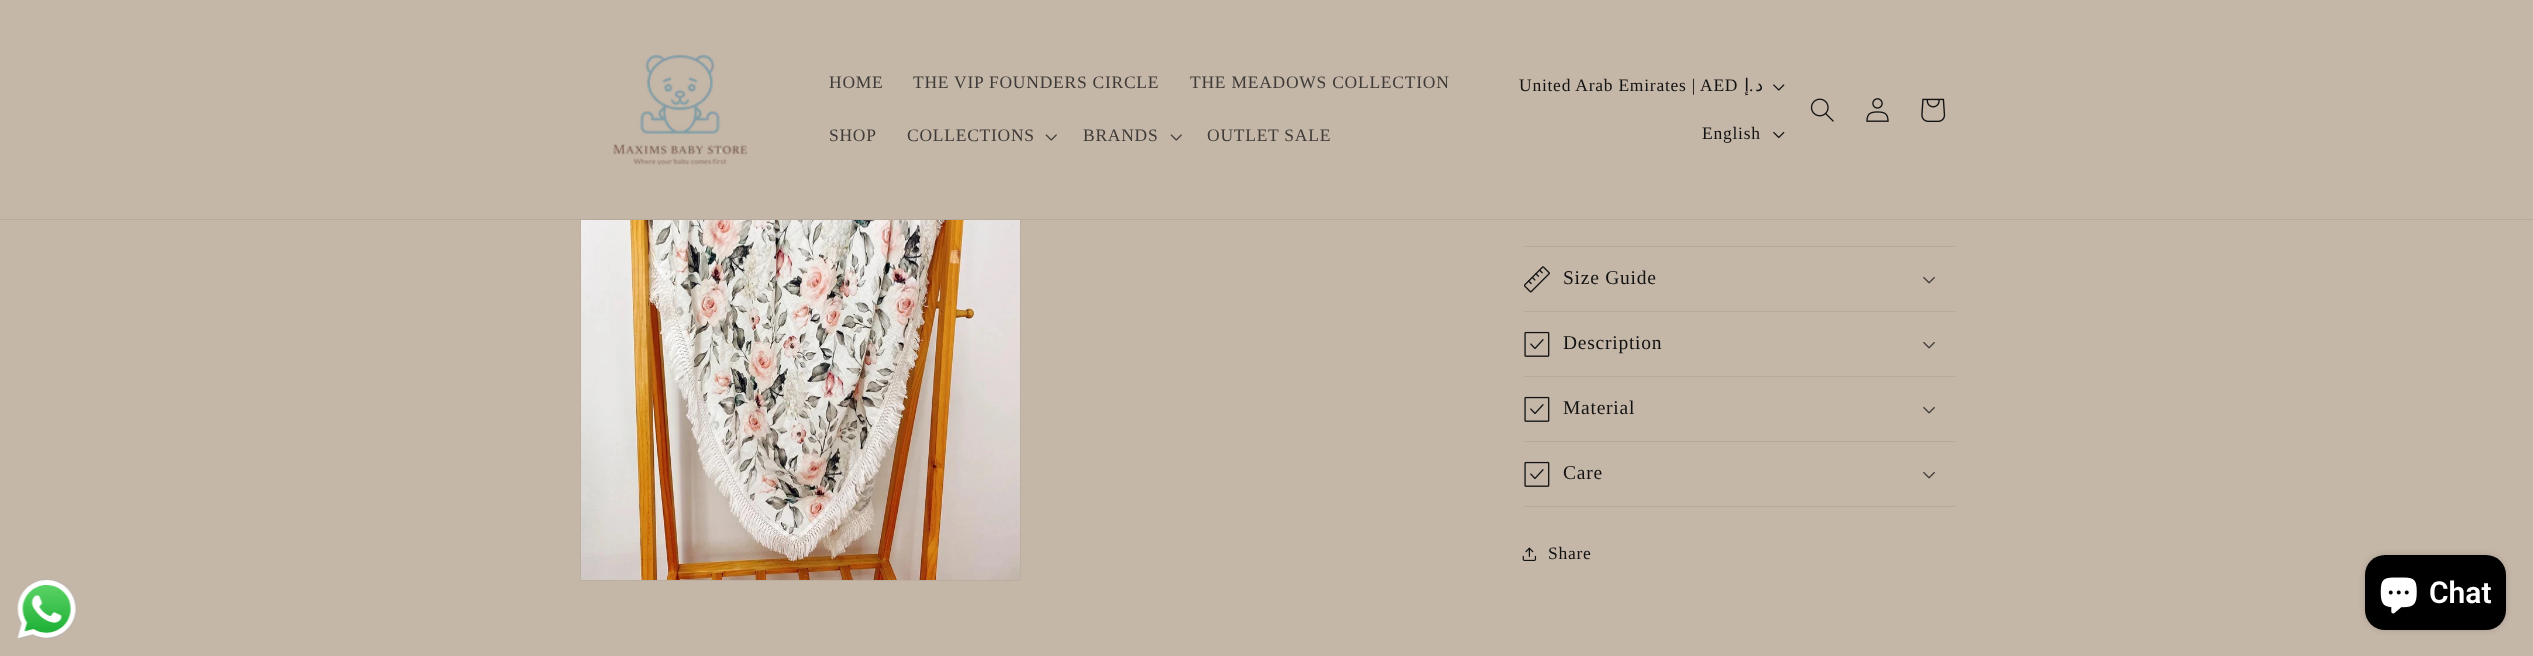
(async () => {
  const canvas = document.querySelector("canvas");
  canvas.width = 2533;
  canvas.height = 656;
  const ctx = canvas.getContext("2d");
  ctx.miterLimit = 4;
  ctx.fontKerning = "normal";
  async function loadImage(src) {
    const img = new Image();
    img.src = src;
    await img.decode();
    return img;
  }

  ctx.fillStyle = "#c5b7a8";
  ctx.fillRect(0, 0, 2533, 656);
  ctx.strokeStyle = "#bcafa0";
  ctx.strokeRect(580.5, 139.5, 440, 441);
  ctx.fillRect(580, 139, 441, 80);
  ctx.fillStyle = "#b7aa9c";
  ctx.fillRect(0, 219, 2533, 1);
  ctx.drawImage(await loadImage("img/1.png"), 613, 54, 135, 111);
  ctx.drawImage(await loadImage("img/2.png"), 1045, 134, 12, 7);
  ctx.drawImage(await loadImage("img/2.png"), 1170, 134, 12, 7);
  ctx.drawImage(await loadImage("img/3.png"), 1773, 84, 12, 7);
  ctx.drawImage(await loadImage("img/4.png"), 1773, 131, 12, 8);
  ctx.drawImage(await loadImage("img/5.png"), 1810, 98, 24, 24);
  ctx.drawImage(await loadImage("img/6.png"), 1866, 98, 23, 24);
  ctx.drawImage(await loadImage("img/7.png"), 1921, 98, 25, 24);
  ctx.drawImage(await loadImage("img/8.png"), 581, 220, 439, 360);
  ctx.fillRect(1524, 246, 431, 1);
  ctx.fillRect(1524, 311, 431, 1);
  ctx.drawImage(await loadImage("img/9.png"), 1524, 266, 26, 27);
  ctx.drawImage(await loadImage("img/10.png"), 1923, 277, 12, 7);
  ctx.fillRect(1524, 376, 431, 1);
  ctx.drawImage(await loadImage("img/11.png"), 1524, 331, 26, 26);
  ctx.drawImage(await loadImage("img/10.png"), 1923, 342, 12, 7);
  ctx.fillRect(1524, 441, 431, 1);
  ctx.drawImage(await loadImage("img/11.png"), 1524, 396, 26, 26);
  ctx.drawImage(await loadImage("img/10.png"), 1923, 407, 12, 7);
  ctx.fillRect(1524, 506, 431, 1);
  ctx.drawImage(await loadImage("img/11.png"), 1524, 461, 26, 26);
  ctx.drawImage(await loadImage("img/10.png"), 1923, 472, 12, 7);
  ctx.drawImage(await loadImage("img/12.png"), 1522, 547, 15, 14);
  ctx.drawImage(await loadImage("img/13.png"), 17, 579, 60, 60);
  ctx.fillStyle = "rgba(0, 0, 0, 0.15)";
  ctx.filter = "blur(3px)";
  ctx.beginPath();
  ctx.roundRect(2365, 555, 141, 75, 20);
  ctx.fill();
  ctx.filter = "none";
  ctx.fillStyle = "#000000";
  ctx.beginPath();
  ctx.roundRect(2365, 555, 141, 75, 20);
  ctx.fill();
  ctx.drawImage(await loadImage("img/14.png"), 2380, 577, 37, 37);
  ctx.letterSpacing = "0.75px";
  ctx.font = "17.5px Liberation Serif";
  ctx.fillStyle = "#3f3b38";
  for (const [text, x, y] of [
    ["HOME", 829, 88],
    ["THE VIP FOUNDERS CIRCLE", 913, 88],
    ["THE MEADOWS COLLECTION", 1190, 88],
    ["SHOP", 829, 141],
    ["COLLECTIONS", 907, 141],
    ["BRANDS", 1083, 141],
    ["OUTLET SALE", 1207, 141],
  ]) {
    ctx.fillText(text, x, y);
  }
  ctx.fillStyle = "#121212";
  ctx.fillText("United Arab Emirates |", 1519, 91);
  ctx.fillText("AED", 1700, 91);
  ctx.direction = "rtl";
  ctx.font = "17.5px DejaVu Sans";
  ctx.fillText("إ", 1749, 91);
  ctx.font = "17.5px Liberation Serif";
  ctx.fillText(".", 1754, 91);
  ctx.font = "17.5px DejaVu Sans";
  ctx.fillText("د", 1763, 91);
  ctx.direction = "ltr";
  ctx.font = "17.5px Liberation Serif";
  ctx.fillText("English", 1702, 139);
  ctx.font = "19.5px Liberation Serif";
  for (const [text, x, y] of [
    ["Size Guide", 1563, 284],
    ["Description", 1563, 349],
    ["Material", 1563, 414],
    ["Care", 1563, 479],
  ]) {
    ctx.fillText(text, x, y);
  }
  ctx.font = "17.5px Liberation Serif";
  ctx.fillText("Share", 1548, 559);
  ctx.letterSpacing = "0px";
  ctx.font = "600 30px Roboto";
  ctx.fillStyle = "#ffffff";
  ctx.fillText("Chat", 2429, 603);
})();
